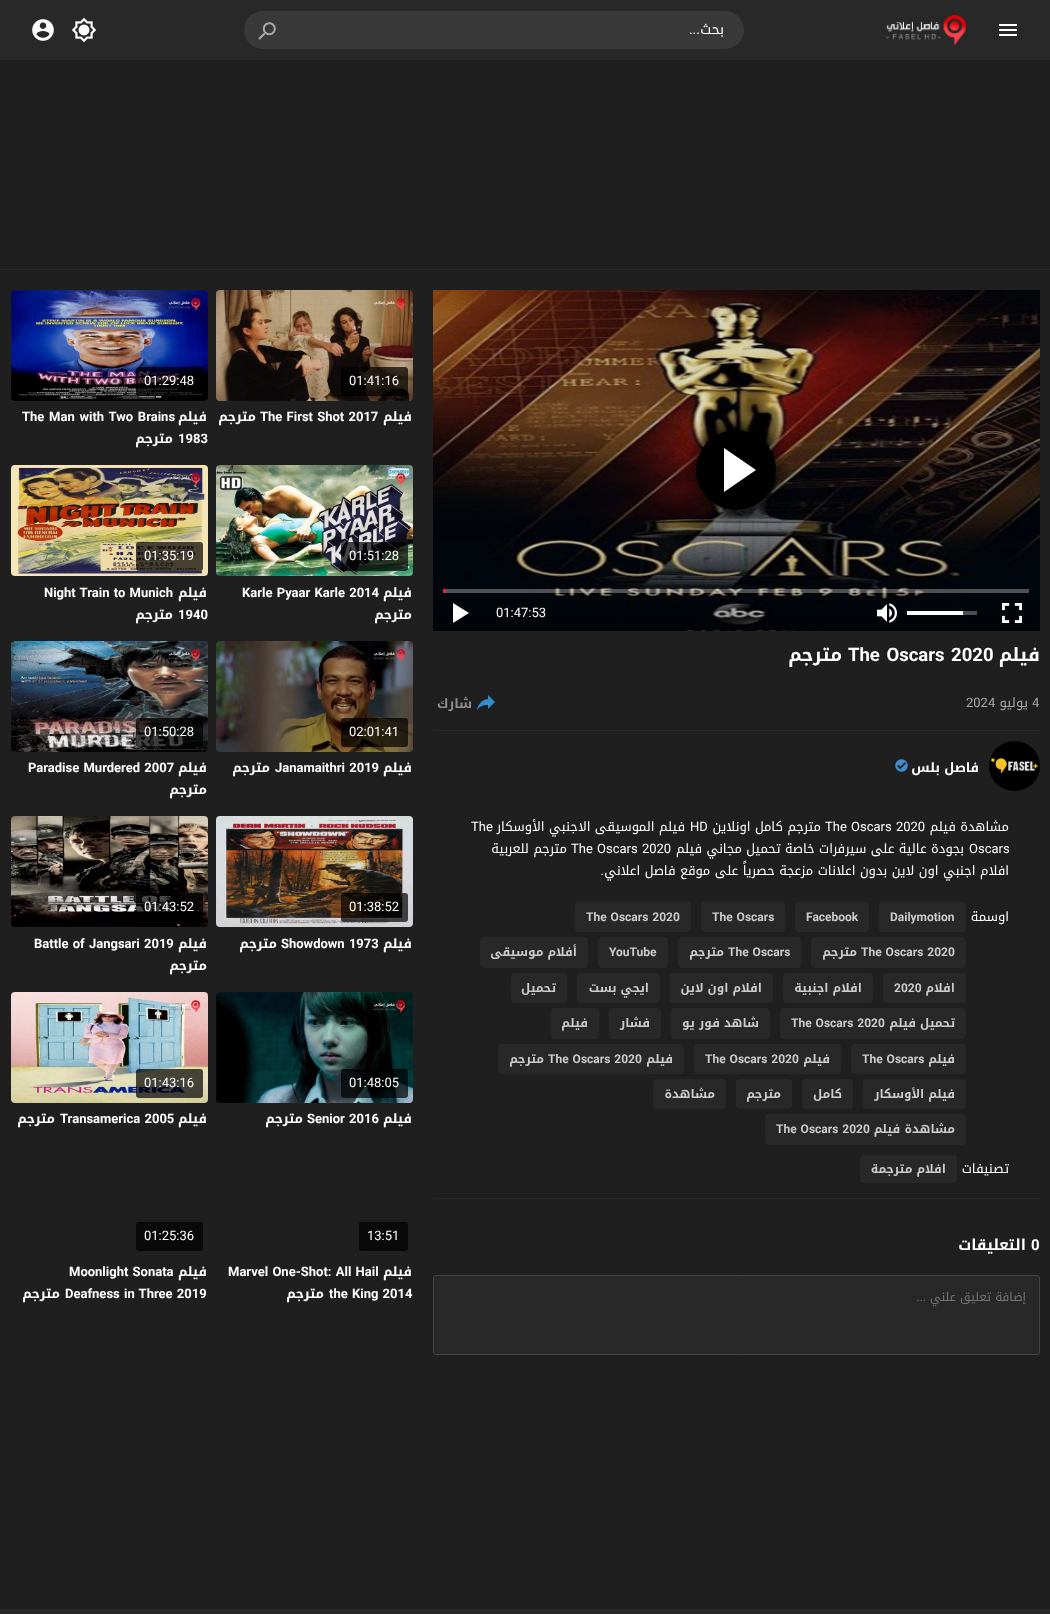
(async () => {
  const canvas = document.querySelector("canvas");
  canvas.width = 1050;
  canvas.height = 1614;
  const ctx = canvas.getContext("2d");
  ctx.miterLimit = 4;
  ctx.fontKerning = "normal";
  async function loadImage(src) {
    const img = new Image();
    img.src = src;
    await img.decode();
    return img;
  }
  let path;

  ctx.fillStyle = "#1f1f1f";
  ctx.fillRect(0, 0, 1050, 1614);
  ctx.fillStyle = "#282828";
  ctx.fillRect(0, 0, 1050, 60);
  ctx.drawImage(await loadImage("img/1.png"), 32, 19, 22, 22);
  ctx.drawImage(await loadImage("img/2.png"), 71, 17, 26, 26);
  ctx.fillStyle = "#393939";
  ctx.beginPath();
  ctx.roundRect(244, 11, 50, 38, [19, 0, 0, 19]);
  ctx.fill();
  ctx.drawImage(await loadImage("img/3.png"), 258, 22, 18, 18);
  ctx.beginPath();
  ctx.roundRect(294, 11, 450, 38, [0, 19, 19, 0]);
  ctx.fill();
  ctx.drawImage(await loadImage("img/4.png"), 886, 15, 80, 30);
  ctx.drawImage(await loadImage("img/5.png"), 999, 24, 18, 12);
  ctx.fillStyle = "#282828";
  ctx.fillRect(0, 269, 1050, 1);
  ctx.drawImage(await loadImage("img/6.png"), 11, 290, 197, 111);
  ctx.fillStyle = "rgba(0, 0, 0, 0.7)";
  ctx.beginPath();
  ctx.roundRect(136, 367, 67, 29, 3);
  ctx.fill();
  ctx.drawImage(await loadImage("img/7.png"), 216, 290, 197, 111);
  ctx.beginPath();
  ctx.roundRect(341, 367, 67, 29, 3);
  ctx.fill();
  ctx.drawImage(await loadImage("img/8.png"), 11, 465, 197, 111);
  ctx.beginPath();
  ctx.roundRect(136, 542, 67, 29, 3);
  ctx.fill();
  ctx.drawImage(await loadImage("img/9.png"), 216, 465, 197, 111);
  ctx.beginPath();
  ctx.roundRect(341, 542, 67, 29, 3);
  ctx.fill();
  ctx.drawImage(await loadImage("img/10.png"), 11, 641, 197, 111);
  ctx.beginPath();
  ctx.roundRect(136, 718, 67, 29, 3);
  ctx.fill();
  ctx.drawImage(await loadImage("img/11.png"), 216, 641, 197, 111);
  ctx.beginPath();
  ctx.roundRect(341, 718, 67, 29, 3);
  ctx.fill();
  ctx.drawImage(await loadImage("img/12.png"), 11, 816, 197, 111);
  ctx.beginPath();
  ctx.roundRect(136, 893, 67, 29, 3);
  ctx.fill();
  ctx.drawImage(await loadImage("img/13.png"), 216, 816, 197, 111);
  ctx.beginPath();
  ctx.roundRect(341, 893, 67, 29, 3);
  ctx.fill();
  ctx.drawImage(await loadImage("img/14.png"), 11, 992, 197, 111);
  ctx.beginPath();
  ctx.roundRect(136, 1069, 67, 29, 3);
  ctx.fill();
  ctx.drawImage(await loadImage("img/15.png"), 216, 992, 197, 111);
  ctx.beginPath();
  ctx.roundRect(341, 1069, 67, 29, 3);
  ctx.fill();
  ctx.fillStyle = "#090909";
  ctx.beginPath();
  ctx.roundRect(136, 1222, 67, 29, 3);
  ctx.fill();
  ctx.beginPath();
  ctx.roundRect(359, 1222, 49, 29, 3);
  ctx.fill();
  ctx.drawImage(await loadImage("img/16.png"), 433, 290, 607, 341);
  ctx.fillStyle = "#000000";
  ctx.filter = "blur(10px)";
  ctx.beginPath();
  ctx.roundRect(696, 430, 80, 80, 40);
  ctx.fill();
  ctx.filter = "none";
  ctx.beginPath();
  ctx.arc(736, 470, 40, 0, Math.PI * 2);
  ctx.fill();
  ctx.fillStyle = "#ffffff";
  path = new Path2D("M724 492V448L756 470Z");
  ctx.fill(path);
  ctx.fillStyle = "rgba(255, 255, 255, 0.3)";
  ctx.fillRect(443, 589, 586, 4);
  ctx.fillStyle = "#e82239";
  ctx.fillRect(443, 589, 3, 4);
  ctx.fillStyle = "#ffffff";
  path = new Path2D("M453 603V623L469 613Z");
  ctx.fill(path);
  ctx.drawImage(await loadImage("img/17.png"), 877, 603, 20, 20);
  ctx.fillStyle = "#4d5052";
  ctx.fillRect(963, 611, 14, 4);
  ctx.fillStyle = "#ffffff";
  ctx.fillRect(907, 611, 56, 4);
  ctx.drawImage(await loadImage("img/18.png"), 1002, 603, 20, 20);
  ctx.fillStyle = "#292929";
  ctx.fillRect(433, 730, 607, 1);
  ctx.drawImage(await loadImage("img/19.png"), 477, 695, 18, 15);
  ctx.drawImage(await loadImage("img/20.png"), 895, 759, 13, 13);
  ctx.drawImage(await loadImage("img/21.png"), 989, 741, 51, 50);
  ctx.fillRect(433, 1198, 607, 1);
  ctx.fillStyle = "#282828";
  ctx.beginPath();
  ctx.roundRect(575, 902, 116, 30, 4);
  ctx.fill();
  ctx.beginPath();
  ctx.roundRect(701, 902, 84, 30, 4);
  ctx.fill();
  ctx.beginPath();
  ctx.roundRect(795, 902, 74, 30, 4);
  ctx.fill();
  ctx.beginPath();
  ctx.roundRect(879, 902, 87, 30, 4);
  ctx.fill();
  ctx.beginPath();
  ctx.roundRect(480, 937, 108, 31, 4);
  ctx.fill();
  ctx.beginPath();
  ctx.roundRect(598, 937, 70, 31, 4);
  ctx.fill();
  ctx.beginPath();
  ctx.roundRect(678, 937, 123, 31, 4);
  ctx.fill();
  ctx.beginPath();
  ctx.roundRect(811, 937, 155, 31, 4);
  ctx.fill();
  ctx.beginPath();
  ctx.roundRect(511, 973, 56, 30, 4);
  ctx.fill();
  ctx.beginPath();
  ctx.roundRect(577, 973, 83, 30, 4);
  ctx.fill();
  ctx.beginPath();
  ctx.roundRect(670, 973, 103, 30, 4);
  ctx.fill();
  ctx.beginPath();
  ctx.roundRect(783, 973, 90, 30, 4);
  ctx.fill();
  ctx.beginPath();
  ctx.roundRect(883, 973, 83, 30, 4);
  ctx.fill();
  ctx.beginPath();
  ctx.roundRect(551, 1008, 48, 31, 4);
  ctx.fill();
  ctx.beginPath();
  ctx.roundRect(609, 1008, 52, 31, 4);
  ctx.fill();
  ctx.beginPath();
  ctx.roundRect(671, 1008, 99, 31, 4);
  ctx.fill();
  ctx.beginPath();
  ctx.roundRect(780, 1008, 186, 31, 4);
  ctx.fill();
  ctx.beginPath();
  ctx.roundRect(498, 1044, 186, 30, 4);
  ctx.fill();
  ctx.beginPath();
  ctx.roundRect(694, 1044, 147, 30, 4);
  ctx.fill();
  ctx.beginPath();
  ctx.roundRect(851, 1044, 115, 30, 4);
  ctx.fill();
  ctx.beginPath();
  ctx.roundRect(653, 1079, 73, 30, 4);
  ctx.fill();
  ctx.beginPath();
  ctx.roundRect(736, 1079, 56, 30, 4);
  ctx.fill();
  ctx.beginPath();
  ctx.roundRect(802, 1079, 51, 30, 4);
  ctx.fill();
  ctx.beginPath();
  ctx.roundRect(863, 1079, 103, 30, 4);
  ctx.fill();
  ctx.beginPath();
  ctx.roundRect(765, 1114, 201, 31, 4);
  ctx.fill();
  ctx.beginPath();
  ctx.roundRect(860, 1155, 97, 28, 4);
  ctx.fill();
  ctx.beginPath();
  ctx.roundRect(433.5, 1275.5, 606, 79, 2.5);
  ctx.fill();
  ctx.strokeStyle = "#444444";
  ctx.stroke();
  ctx.fillRect(0, 1609, 1050, 5);
  ctx.direction = "rtl";
  ctx.font = "14px Roboto";
  ctx.fillStyle = "#ffffff";
  ctx.fillText("...", 700, 34);
  ctx.font = "14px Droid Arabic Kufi";
  ctx.fillText("بحث", 724, 34);
  ctx.direction = "ltr";
  ctx.font = "13px Roboto";
  ctx.fillText("01:29:48", 144, 385);
  ctx.wordSpacing = "1.5px";
  ctx.font = "bold 13px Roboto";
  ctx.fillText("The Man with Two Brains", 22, 421);
  ctx.wordSpacing = "0px";
  ctx.direction = "rtl";
  ctx.font = "bold 13px Droid Arabic Kufi";
  ctx.fillText("فيلم", 207, 421);
  ctx.fillText("مترجم", 173, 443);
  ctx.direction = "ltr";
  ctx.font = "bold 13px Roboto";
  ctx.fillText("1983", 178, 443);
  ctx.font = "13px Roboto";
  ctx.fillText("01:41:16", 349, 385);
  ctx.direction = "rtl";
  ctx.font = "bold 13px Droid Arabic Kufi";
  ctx.fillText("مترجم", 256, 421);
  ctx.wordSpacing = "1px";
  ctx.direction = "ltr";
  ctx.font = "bold 13px Roboto";
  ctx.fillText("The First Shot 2017", 260, 421);
  ctx.wordSpacing = "0px";
  ctx.direction = "rtl";
  ctx.font = "bold 13px Droid Arabic Kufi";
  ctx.fillText("فيلم", 412, 421);
  ctx.direction = "ltr";
  ctx.font = "13px Roboto";
  ctx.fillText("01:35:19", 144, 560);
  ctx.wordSpacing = "1px";
  ctx.font = "bold 13px Roboto";
  ctx.fillText("Night Train to Munich", 44, 597);
  ctx.wordSpacing = "0px";
  ctx.direction = "rtl";
  ctx.font = "bold 13px Droid Arabic Kufi";
  ctx.fillText("فيلم", 207, 597);
  ctx.fillText("مترجم", 173, 619);
  ctx.direction = "ltr";
  ctx.font = "bold 13px Roboto";
  ctx.fillText("1940", 178, 619);
  ctx.font = "13px Roboto";
  ctx.fillText("01:51:28", 349, 560);
  ctx.wordSpacing = "1px";
  ctx.font = "bold 13px Roboto";
  ctx.fillText("Karle Pyaar Karle 2014", 242, 597);
  ctx.wordSpacing = "0px";
  ctx.direction = "rtl";
  ctx.font = "bold 13px Droid Arabic Kufi";
  ctx.fillText("فيلم", 412, 597);
  ctx.fillText("مترجم", 412, 619);
  ctx.direction = "ltr";
  ctx.font = "13px Roboto";
  ctx.fillText("01:50:28", 144, 736);
  ctx.wordSpacing = "1px";
  ctx.font = "bold 13px Roboto";
  ctx.fillText("Paradise Murdered 2007", 28, 772);
  ctx.wordSpacing = "0px";
  ctx.direction = "rtl";
  ctx.font = "bold 13px Droid Arabic Kufi";
  ctx.fillText("فيلم", 207, 772);
  ctx.fillText("مترجم", 207, 794);
  ctx.direction = "ltr";
  ctx.font = "13px Roboto";
  ctx.fillText("02:01:41", 349, 736);
  ctx.direction = "rtl";
  ctx.font = "bold 13px Droid Arabic Kufi";
  ctx.fillText("مترجم", 270, 772);
  ctx.wordSpacing = "1px";
  ctx.direction = "ltr";
  ctx.font = "bold 13px Roboto";
  ctx.fillText("Janamaithri 2019", 275, 772);
  ctx.wordSpacing = "0px";
  ctx.direction = "rtl";
  ctx.font = "bold 13px Droid Arabic Kufi";
  ctx.fillText("فيلم", 412, 772);
  ctx.direction = "ltr";
  ctx.font = "13px Roboto";
  ctx.fillText("01:43:52", 144, 911);
  ctx.wordSpacing = "1px";
  ctx.font = "bold 13px Roboto";
  ctx.fillText("Battle of Jangsari 2019", 34, 948);
  ctx.wordSpacing = "0px";
  ctx.direction = "rtl";
  ctx.font = "bold 13px Droid Arabic Kufi";
  ctx.fillText("فيلم", 207, 948);
  ctx.fillText("مترجم", 207, 970);
  ctx.direction = "ltr";
  ctx.font = "13px Roboto";
  ctx.fillText("01:38:52", 349, 911);
  ctx.direction = "rtl";
  ctx.font = "bold 13px Droid Arabic Kufi";
  ctx.fillText("مترجم", 277, 948);
  ctx.wordSpacing = "1px";
  ctx.direction = "ltr";
  ctx.font = "bold 13px Roboto";
  ctx.fillText("Showdown 1973", 281, 948);
  ctx.wordSpacing = "0px";
  ctx.direction = "rtl";
  ctx.font = "bold 13px Droid Arabic Kufi";
  ctx.fillText("فيلم", 412, 948);
  ctx.direction = "ltr";
  ctx.font = "13px Roboto";
  ctx.fillText("01:43:16", 144, 1087);
  ctx.direction = "rtl";
  ctx.font = "bold 13px Droid Arabic Kufi";
  ctx.fillText("مترجم", 55, 1123);
  ctx.wordSpacing = "1px";
  ctx.direction = "ltr";
  ctx.font = "bold 13px Roboto";
  ctx.fillText("Transamerica 2005", 60, 1123);
  ctx.wordSpacing = "0px";
  ctx.direction = "rtl";
  ctx.font = "bold 13px Droid Arabic Kufi";
  ctx.fillText("فيلم", 207, 1123);
  ctx.direction = "ltr";
  ctx.font = "13px Roboto";
  ctx.fillText("01:48:05", 349, 1087);
  ctx.direction = "rtl";
  ctx.font = "bold 13px Droid Arabic Kufi";
  ctx.fillText("مترجم", 303, 1123);
  ctx.wordSpacing = "1px";
  ctx.direction = "ltr";
  ctx.font = "bold 13px Roboto";
  ctx.fillText("Senior 2016", 307, 1123);
  ctx.wordSpacing = "0px";
  ctx.direction = "rtl";
  ctx.font = "bold 13px Droid Arabic Kufi";
  ctx.fillText("فيلم", 412, 1123);
  ctx.direction = "ltr";
  ctx.font = "13px Roboto";
  ctx.fillText("01:25:36", 144, 1240);
  ctx.wordSpacing = "1px";
  ctx.font = "bold 13px Roboto";
  ctx.fillText("Moonlight Sonata", 69, 1276);
  ctx.wordSpacing = "0px";
  ctx.direction = "rtl";
  ctx.font = "bold 13px Droid Arabic Kufi";
  ctx.fillText("فيلم", 207, 1276);
  ctx.fillText("مترجم", 60, 1298);
  ctx.wordSpacing = "1px";
  ctx.direction = "ltr";
  ctx.font = "bold 13px Roboto";
  ctx.fillText("Deafness in Three 2019", 65, 1298);
  ctx.wordSpacing = "0px";
  ctx.font = "13px Roboto";
  ctx.fillText("13:51", 367, 1240);
  ctx.wordSpacing = "1px";
  ctx.font = "bold 13px Roboto";
  ctx.fillText("Marvel One-Shot: All Hail", 228, 1276);
  ctx.wordSpacing = "0px";
  ctx.direction = "rtl";
  ctx.font = "bold 13px Droid Arabic Kufi";
  ctx.fillText("فيلم", 412, 1276);
  ctx.fillText("مترجم", 324, 1298);
  ctx.wordSpacing = "1px";
  ctx.direction = "ltr";
  ctx.font = "bold 13px Roboto";
  ctx.fillText("the King 2014", 329, 1298);
  ctx.wordSpacing = "0px";
  ctx.font = "13px Roboto";
  ctx.fillText("01:47:53", 496, 617);
  ctx.direction = "rtl";
  ctx.font = "bold 18.5px Droid Arabic Kufi";
  ctx.fillText("مترجم", 842, 661);
  ctx.wordSpacing = "2px";
  ctx.direction = "ltr";
  ctx.font = "bold 18.5px Roboto";
  ctx.fillText("The Oscars 2020", 848, 661);
  ctx.wordSpacing = "0px";
  ctx.direction = "rtl";
  ctx.font = "bold 18.5px Droid Arabic Kufi";
  ctx.fillText("فيلم", 1040, 661);
  ctx.font = "bold 13px Droid Arabic Kufi";
  ctx.fillStyle = "#909090";
  ctx.fillText("شارك", 472, 708);
  ctx.direction = "ltr";
  ctx.font = "13px Roboto";
  ctx.fillStyle = "#aaaaaa";
  ctx.fillText("2024", 966, 707);
  ctx.direction = "rtl";
  ctx.font = "13px Droid Arabic Kufi";
  ctx.fillText("يوليو", 1028, 707);
  ctx.direction = "ltr";
  ctx.font = "13px Roboto";
  ctx.fillText("4", 1032, 707);
  ctx.direction = "rtl";
  ctx.font = "bold 13px Droid Arabic Kufi";
  ctx.fillStyle = "#ffffff";
  ctx.fillText("فاصل بلس", 979, 772);
  ctx.direction = "ltr";
  ctx.font = "13px Roboto";
  ctx.fillText("The", 471, 831);
  ctx.direction = "rtl";
  ctx.font = "13px Droid Arabic Kufi";
  ctx.fillText("فيلم الموسيقى الاجنبي الأوسكار", 685, 831);
  ctx.direction = "ltr";
  ctx.font = "13px Roboto";
  ctx.fillText("HD", 690, 831);
  ctx.direction = "rtl";
  ctx.font = "13px Droid Arabic Kufi";
  ctx.fillText("مترجم كامل اونلاين", 821, 831);
  ctx.wordSpacing = "1px";
  ctx.direction = "ltr";
  ctx.font = "13px Roboto";
  ctx.fillText("The Oscars 2020", 825, 831);
  ctx.wordSpacing = "0px";
  ctx.direction = "rtl";
  ctx.font = "13px Droid Arabic Kufi";
  ctx.fillText("مشاهدة فيلم", 1009, 831);
  ctx.fillText("مترجم للعربية", 567, 853);
  ctx.wordSpacing = "1px";
  ctx.direction = "ltr";
  ctx.font = "13px Roboto";
  ctx.fillText("The Oscars 2020", 571, 853);
  ctx.wordSpacing = "0px";
  ctx.direction = "rtl";
  ctx.font = "13px Droid Arabic Kufi";
  ctx.fillText("بجودة عالية على سيرفرات خاصة تحميل مجاني فيلم", 964, 853);
  ctx.direction = "ltr";
  ctx.font = "13px Roboto";
  ctx.fillText("Oscars", 969, 853);
  ctx.direction = "rtl";
  ctx.fillText(".", 604, 875);
  ctx.font = "13px Droid Arabic Kufi";
  ctx.fillText("افلام اجنبي اون لاين بدون اعلانات مزعجة حصرياً على موقع فاصل اعلاني", 1009, 875);
  ctx.wordSpacing = "1px";
  ctx.direction = "ltr";
  ctx.font = "bold 12px Roboto";
  ctx.fillStyle = "#cccccc";
  ctx.fillText("The Oscars 2020", 586, 921);
  ctx.fillText("The Oscars", 712, 921);
  ctx.wordSpacing = "0px";
  ctx.fillText("Facebook", 806, 921);
  ctx.fillText("Dailymotion", 890, 921);
  ctx.direction = "rtl";
  ctx.font = "13px Droid Arabic Kufi";
  ctx.fillStyle = "#ffffff";
  ctx.fillText("اوسمة", 1009, 921);
  ctx.font = "bold 12px Droid Arabic Kufi";
  ctx.fillStyle = "#cccccc";
  ctx.fillText("أفلام موسيقى", 577, 956);
  ctx.direction = "ltr";
  ctx.font = "bold 12px Roboto";
  ctx.fillText("YouTube", 609, 956);
  ctx.direction = "rtl";
  ctx.font = "bold 12px Droid Arabic Kufi";
  ctx.fillText("مترجم", 724, 956);
  ctx.wordSpacing = "1px";
  ctx.direction = "ltr";
  ctx.font = "bold 12px Roboto";
  ctx.fillText("The Oscars", 728, 956);
  ctx.wordSpacing = "0px";
  ctx.direction = "rtl";
  ctx.font = "bold 12px Droid Arabic Kufi";
  ctx.fillText("مترجم", 857, 956);
  ctx.wordSpacing = "1px";
  ctx.direction = "ltr";
  ctx.font = "bold 12px Roboto";
  ctx.fillText("The Oscars 2020", 861, 956);
  ctx.wordSpacing = "0px";
  ctx.direction = "rtl";
  ctx.font = "bold 12px Droid Arabic Kufi";
  for (const [text, x, y] of [
    ["تحميل", 556, 992],
    ["ايجي بست", 649, 992],
    ["افلام اون لاين", 762, 992],
    ["افلام اجنبية", 862, 992],
  ]) {
    ctx.fillText(text, x, y);
  }
  ctx.direction = "ltr";
  ctx.font = "bold 12px Roboto";
  ctx.fillText("2020", 894, 992);
  ctx.direction = "rtl";
  ctx.font = "bold 12px Droid Arabic Kufi";
  for (const [text, x, y] of [
    ["افلام", 955, 992],
    ["فيلم", 588, 1027],
    ["فشار", 650, 1027],
    ["شاهد فور يو", 759, 1027],
  ]) {
    ctx.fillText(text, x, y);
  }
  ctx.wordSpacing = "1px";
  ctx.direction = "ltr";
  ctx.font = "bold 12px Roboto";
  ctx.fillText("The Oscars 2020", 791, 1027);
  ctx.wordSpacing = "0px";
  ctx.direction = "rtl";
  ctx.font = "bold 12px Droid Arabic Kufi";
  ctx.fillText("تحميل فيلم", 955, 1027);
  ctx.fillText("مترجم", 544, 1063);
  ctx.wordSpacing = "1px";
  ctx.direction = "ltr";
  ctx.font = "bold 12px Roboto";
  ctx.fillText("The Oscars 2020", 548, 1063);
  ctx.wordSpacing = "0px";
  ctx.direction = "rtl";
  ctx.font = "bold 12px Droid Arabic Kufi";
  ctx.fillText("فيلم", 673, 1063);
  ctx.wordSpacing = "1px";
  ctx.direction = "ltr";
  ctx.font = "bold 12px Roboto";
  ctx.fillText("The Oscars 2020", 705, 1063);
  ctx.wordSpacing = "0px";
  ctx.direction = "rtl";
  ctx.font = "bold 12px Droid Arabic Kufi";
  ctx.fillText("فيلم", 830, 1063);
  ctx.wordSpacing = "1px";
  ctx.direction = "ltr";
  ctx.font = "bold 12px Roboto";
  ctx.fillText("The Oscars", 862, 1063);
  ctx.wordSpacing = "0px";
  ctx.direction = "rtl";
  ctx.font = "bold 12px Droid Arabic Kufi";
  for (const [text, x, y] of [
    ["فيلم", 955, 1063],
    ["مشاهدة", 715, 1098],
    ["مترجم", 781, 1098],
    ["كامل", 842, 1098],
    ["فيلم الأوسكار", 955, 1098],
  ]) {
    ctx.fillText(text, x, y);
  }
  ctx.wordSpacing = "1px";
  ctx.direction = "ltr";
  ctx.font = "bold 12px Roboto";
  ctx.fillText("The Oscars 2020", 776, 1133);
  ctx.wordSpacing = "0px";
  ctx.direction = "rtl";
  ctx.font = "bold 12px Droid Arabic Kufi";
  ctx.fillText("مشاهدة فيلم", 955, 1133);
  ctx.fillText("افلام مترجمة", 946, 1173);
  ctx.font = "13px Droid Arabic Kufi";
  ctx.fillStyle = "#ffffff";
  ctx.fillText("تصنيفات", 1009, 1173);
  ctx.font = "bold 15px Droid Arabic Kufi";
  ctx.fillText("التعليقات", 1026, 1250);
  ctx.direction = "ltr";
  ctx.font = "bold 15px Roboto";
  ctx.fillText("0", 1031, 1250);
  ctx.direction = "rtl";
  ctx.font = "12px Roboto";
  ctx.fillStyle = "#757575";
  ctx.fillText("...", 926, 1301);
  ctx.font = "12px Droid Arabic Kufi";
  ctx.fillText("إضافة تعليق علني", 1026, 1301);
})();
